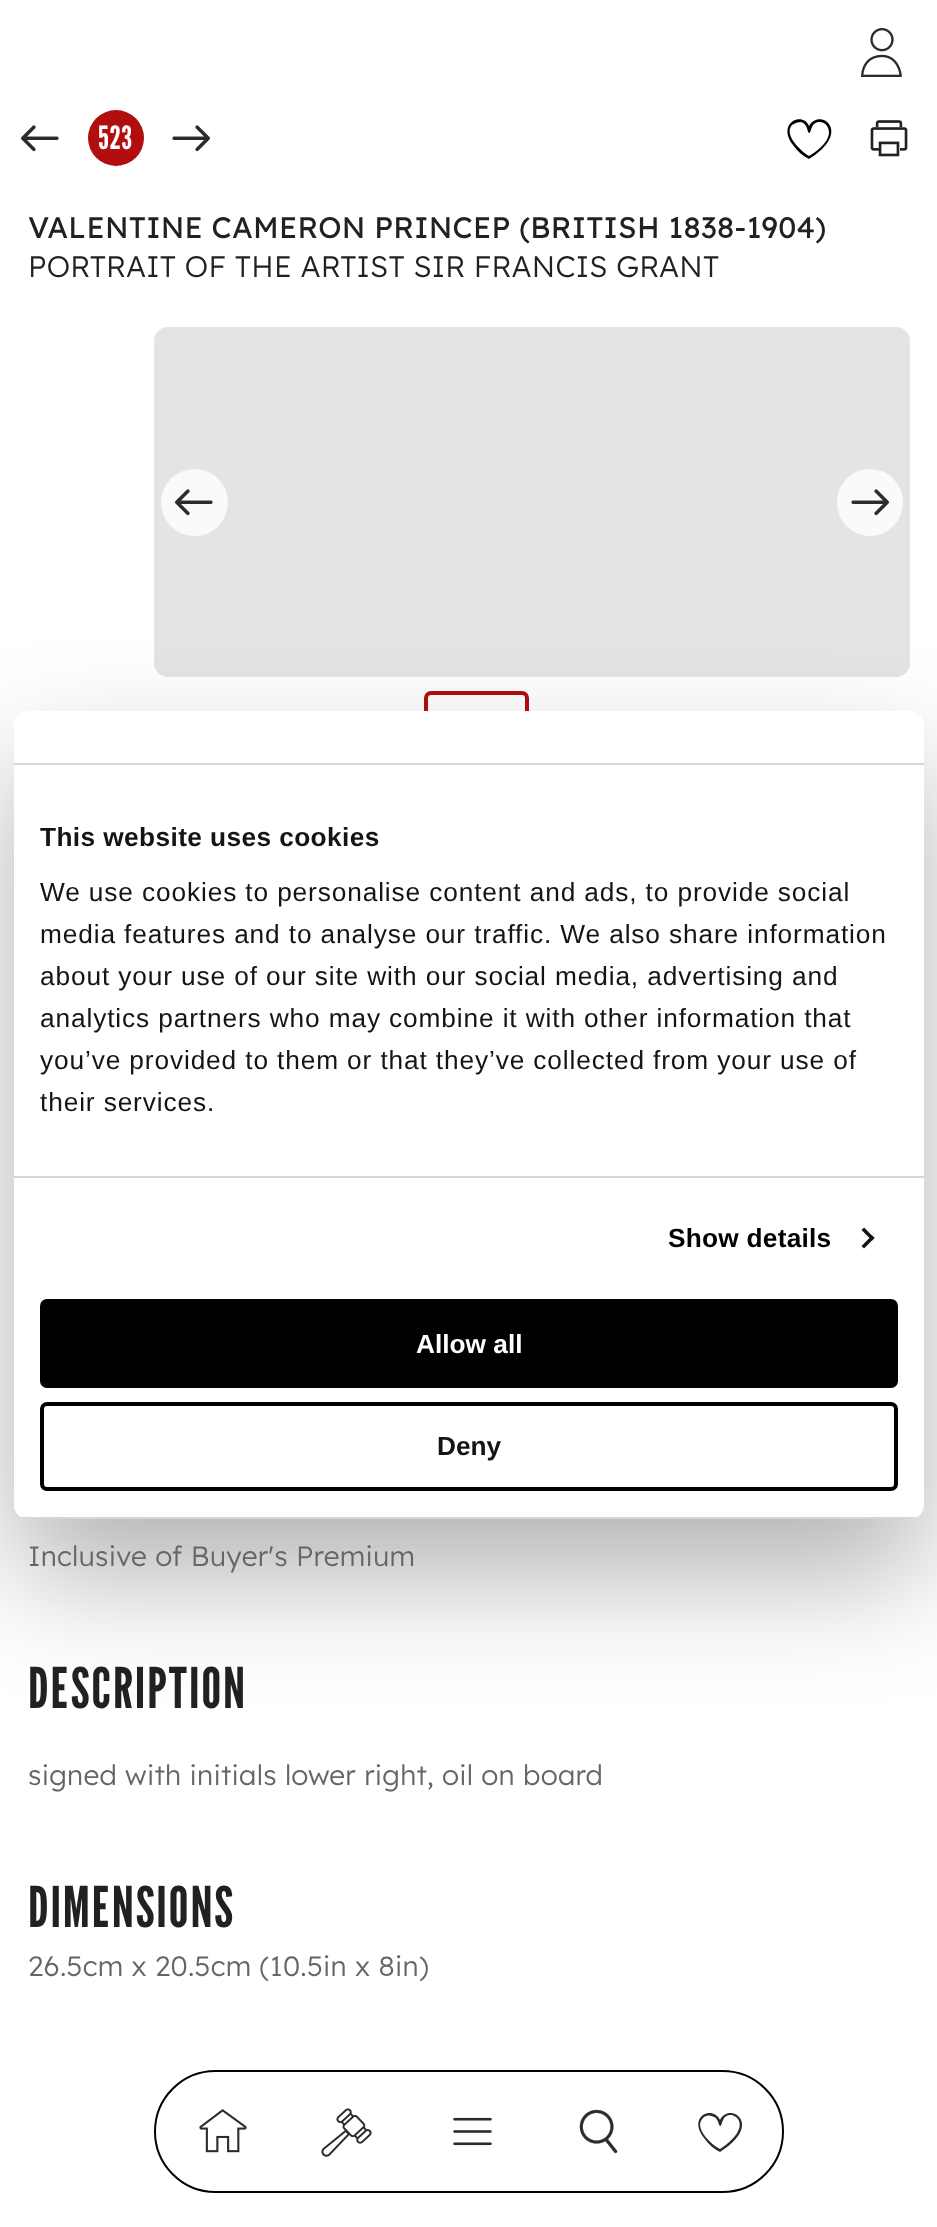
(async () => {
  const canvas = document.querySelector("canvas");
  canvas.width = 937;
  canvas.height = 2227;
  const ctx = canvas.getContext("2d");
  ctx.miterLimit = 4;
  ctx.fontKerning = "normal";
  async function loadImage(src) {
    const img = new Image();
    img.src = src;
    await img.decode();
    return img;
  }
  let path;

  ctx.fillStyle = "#ffffff";
  ctx.fillRect(0, 0, 937, 2227);
  ctx.drawImage(await loadImage("img/1.png"), 861, 28, 41, 49);
  ctx.beginPath();
  ctx.roundRect(155, 2071, 628, 121, 60.5);
  ctx.strokeStyle = "#000000";
  ctx.lineWidth = 2;
  ctx.stroke();
  ctx.drawImage(await loadImage("img/2.png"), 199, 2109, 48, 44);
  ctx.drawImage(await loadImage("img/3.png"), 321, 2108, 51, 49);
  ctx.drawImage(await loadImage("img/4.png"), 453, 2117, 39, 29);
  ctx.drawImage(await loadImage("img/5.png"), 579, 2109, 39, 45);
  ctx.fillStyle = "#2d2a27";
  path = new Path2D("M720 2120C713 2105 687 2116 704 2138C708 2144 714 2149 720 2152C765 2124 729 2101 720 2120ZM711 2116C708 2115 705 2116 703 2118C693 2128 712 2145 720 2149C728 2144 743 2132 739 2121C738 2118 735 2116 732 2115C721 2114 723 2126 720 2126C718 2125 719 2117 711 2116Z");
  ctx.fill(path, "evenodd");
  ctx.drawImage(await loadImage("img/6.png"), 21, 125, 38, 27);
  ctx.fillStyle = "#b20e10";
  ctx.beginPath();
  ctx.arc(116, 138, 28, 0, Math.PI * 2);
  ctx.fill();
  ctx.drawImage(await loadImage("img/7.png"), 172, 125, 38, 27);
  ctx.fillStyle = "#000000";
  path = new Path2D("M809 126C803 111 776 123 793 145C797 151 803 156 809 159C854 131 819 107 809 126ZM801 122C798 122 795 123 792 125C783 135 802 152 809 156C818 151 833 139 828 128C827 125 825 123 821 122C810 121 812 133 809 133C807 132 808 124 801 122Z");
  ctx.fill(path, "evenodd");
  ctx.drawImage(await loadImage("img/8.png"), 870, 120, 38, 37);
  ctx.fillStyle = "#e4e4e4";
  ctx.beginPath();
  ctx.roundRect(154, 327, 756, 350, 14);
  ctx.fill();
  ctx.fillStyle = "#fafafa";
  ctx.beginPath();
  ctx.arc(194.5, 502.5, 33.5, 0, Math.PI * 2);
  ctx.fill();
  ctx.drawImage(await loadImage("img/9.png"), 175, 489, 38, 27);
  ctx.beginPath();
  ctx.roundRect(837, 469, 66, 67, 33);
  ctx.fill();
  ctx.drawImage(await loadImage("img/10.png"), 851, 489, 38, 27);
  ctx.beginPath();
  ctx.roundRect(426, 693, 101, 101, 5);
  ctx.strokeStyle = "#b20e10";
  ctx.lineWidth = 4;
  ctx.stroke();
  ctx.fillStyle = "rgba(0, 0, 0, 0.3)";
  ctx.filter = "blur(59.5px)";
  ctx.beginPath();
  ctx.roundRect(14, 767, 910, 808, 14);
  ctx.fill();
  ctx.filter = "none";
  ctx.fillStyle = "#ffffff";
  ctx.beginPath();
  ctx.roundRect(14, 711, 910, 808, 14);
  ctx.fill();
  ctx.fillStyle = "#d6d6d6";
  ctx.fillRect(14, 763, 910, 2);
  ctx.fillRect(14, 1176, 910, 2);
  ctx.fillStyle = "#141414";
  path = new Path2D("M864 1227.5L874.5 1238L872 1240.5L861.5 1230Z");
  ctx.fill(path);
  path = new Path2D("M872 1235.5L874.5 1238L864 1248.5L861.5 1246Z");
  ctx.fill(path);
  ctx.save();
  ctx.beginPath();
  ctx.roundRect(14, 711, 910, 808, 14);
  ctx.clip();
  ctx.fillStyle = "#d6d6d6";
  ctx.fillRect(14, 1517, 910, 2);
  ctx.restore();
  ctx.fillStyle = "#000000";
  ctx.beginPath();
  ctx.roundRect(42, 1301, 854, 85, 5);
  ctx.fill();
  ctx.strokeStyle = "#000000";
  ctx.stroke();
  ctx.beginPath();
  ctx.roundRect(42, 1404, 854, 85, 5);
  ctx.stroke();
  ctx.letterSpacing = "0.25px";
  ctx.font = "32px League Gothic";
  ctx.fillStyle = "#ffffff";
  ctx.fillText("523", 98, 149);
  ctx.font = "29.75px Lexend";
  ctx.fillStyle = "#212121";
  ctx.fillText("VALENTINE CAMERON PRINCEP (BRITISH 1838-1904)", 28, 238);
  ctx.font = "300 29.75px Lexend";
  ctx.fillText("PORTRAIT OF THE ARTIST SIR FRANCIS GRANT", 28, 277);
  ctx.font = "300 28px Lexend";
  ctx.fillStyle = "#666666";
  ctx.fillText("Inclusive of Buyer's Premium", 28, 1566);
  ctx.letterSpacing = "1.75px";
  ctx.font = "56px League Gothic";
  ctx.fillStyle = "#212121";
  ctx.fillText("DESCRIPTION", 28, 1708);
  ctx.letterSpacing = "0.25px";
  ctx.font = "300 28px Lexend";
  ctx.fillStyle = "#666666";
  ctx.fillText("signed with initials lower right, oil on board", 28, 1785);
  ctx.letterSpacing = "1.75px";
  ctx.font = "56px League Gothic";
  ctx.fillStyle = "#212121";
  ctx.fillText("DIMENSIONS", 28, 1927);
  ctx.letterSpacing = "0.25px";
  ctx.font = "300 28px Lexend";
  ctx.fillStyle = "#666666";
  ctx.fillText("26.5cm x 20.5cm (10.5in x 8in)", 28, 1976);
  ctx.letterSpacing = "0.4px";
  ctx.font = "bold 26.25px Liberation Sans";
  ctx.fillStyle = "#141414";
  ctx.fillText("This website uses cookies", 40, 846);
  ctx.letterSpacing = "0.88px";
  ctx.font = "26.25px Liberation Sans";
  for (const [text, x, y] of [
    ["We use cookies to personalise content and ads, to provide social", 40, 901],
    ["media features and to analyse our traffic. We also share information", 40, 943],
    ["about your use of our site with our social media, advertising and", 40, 985],
    ["analytics partners who may combine it with other information that", 40, 1027],
    ["you’ve provided to them or that they’ve collected from your use of", 40, 1069],
    ["their services.", 40, 1111],
  ]) {
    ctx.fillText(text, x, y);
  }
  ctx.letterSpacing = "0.25px";
  ctx.font = "bold 26.25px Liberation Sans";
  ctx.fillStyle = "#000000";
  ctx.fillText("Show details", 668, 1247);
  ctx.letterSpacing = "0px";
  ctx.fillStyle = "#ffffff";
  ctx.fillText("Allow all", 416, 1353);
  ctx.fillStyle = "#141414";
  ctx.fillText("Deny", 437, 1455);
})();
